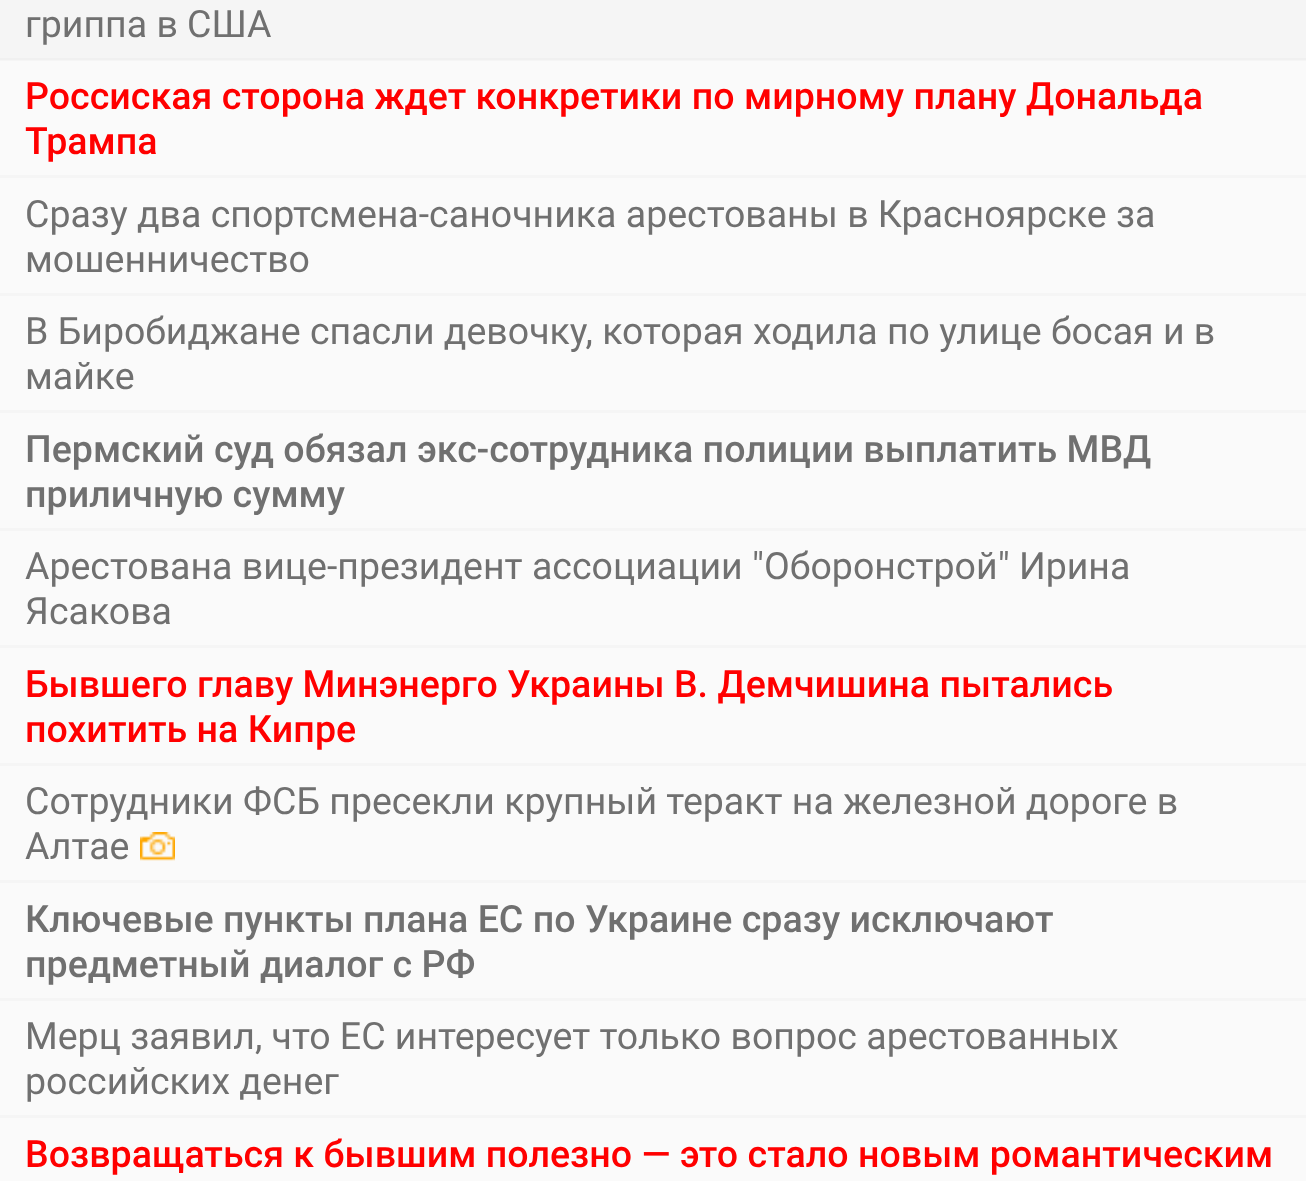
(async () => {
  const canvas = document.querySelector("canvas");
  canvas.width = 1306;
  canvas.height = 1181;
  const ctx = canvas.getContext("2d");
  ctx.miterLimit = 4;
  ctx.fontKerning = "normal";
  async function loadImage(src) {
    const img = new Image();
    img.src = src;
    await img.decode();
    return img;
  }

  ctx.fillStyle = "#fafafa";
  ctx.fillRect(0, 0, 1306, 1181);
  for (const [x, y, w, h, color] of [
    [0, 60, 1306, 1, "#f5f5f5"],
    [0, 0, 1306, 58, "#f5f5f5"],
    [0, 58, 1306, 2, "#f0f0f0"],
    [0, 175, 1306, 3, "#f5f5f5"],
    [0, 293, 1306, 3, "#f5f5f5"],
    [0, 410, 1306, 3, "#f5f5f5"],
    [0, 528, 1306, 3, "#f5f5f5"],
    [0, 645, 1306, 3, "#f5f5f5"],
    [0, 763, 1306, 3, "#f5f5f5"],
    [0, 880, 1306, 3, "#f5f5f5"],
  ]) {
    ctx.fillStyle = color;
    ctx.fillRect(x, y, w, h);
  }
  ctx.drawImage(await loadImage("img/1.png"), 140, 832, 35, 29);
  ctx.fillRect(0, 998, 1306, 3);
  ctx.fillRect(0, 1115, 1306, 3);
  ctx.font = "37.5px Roboto";
  ctx.fillStyle = "#707070";
  ctx.fillText("гриппа в США", 25, 37);
  ctx.font = "500 37.5px Roboto";
  ctx.fillStyle = "#ff0000";
  ctx.fillText("Россиская сторона ждет конкретики по мирному плану Дональда", 25, 109);
  ctx.fillText("Трампа", 25, 154);
  ctx.font = "37.5px Roboto";
  ctx.fillStyle = "#707070";
  for (const [text, x, y] of [
    ["Сразу два спортсмена-саночника арестованы в Красноярске за", 25, 227],
    ["мошенничество", 25, 272],
    ["В Биробиджане спасли девочку, которая ходила по улице босая и в", 25, 344],
    ["майке", 25, 389],
  ]) {
    ctx.fillText(text, x, y);
  }
  ctx.font = "500 37.5px Roboto";
  ctx.fillText("Пермский суд обязал экс-сотрудника полиции выплатить МВД", 25, 462);
  ctx.fillText("приличную сумму", 25, 507);
  ctx.font = "37.5px Roboto";
  ctx.fillText("Арестована вице-президент ассоциации \"Оборонстрой\" Ирина", 25, 579);
  ctx.fillText("Ясакова", 25, 624);
  ctx.font = "500 37.5px Roboto";
  ctx.fillStyle = "#ff0000";
  ctx.fillText("Бывшего главу Минэнерго Украины В. Демчишина пытались", 25, 697);
  ctx.fillText("похитить на Кипре", 25, 742);
  ctx.font = "37.5px Roboto";
  ctx.fillStyle = "#707070";
  ctx.fillText("Сотрудники ФСБ пресекли крупный теракт на железной дороге в", 25, 814);
  ctx.fillText("Алтае", 25, 859);
  ctx.font = "500 37.5px Roboto";
  ctx.fillText("Ключевые пункты плана ЕС по Украине сразу исключают", 25, 932);
  ctx.fillText("предметный диалог с РФ", 25, 977);
  ctx.font = "37.5px Roboto";
  ctx.fillText("Мерц заявил, что ЕС интересует только вопрос арестованных", 25, 1049);
  ctx.fillText("российских денег", 25, 1094);
  ctx.font = "500 37.5px Roboto";
  ctx.fillStyle = "#ff0000";
  ctx.fillText("Возвращаться к бывшим полезно — это стало новым романтическим", 25, 1167);
})();
